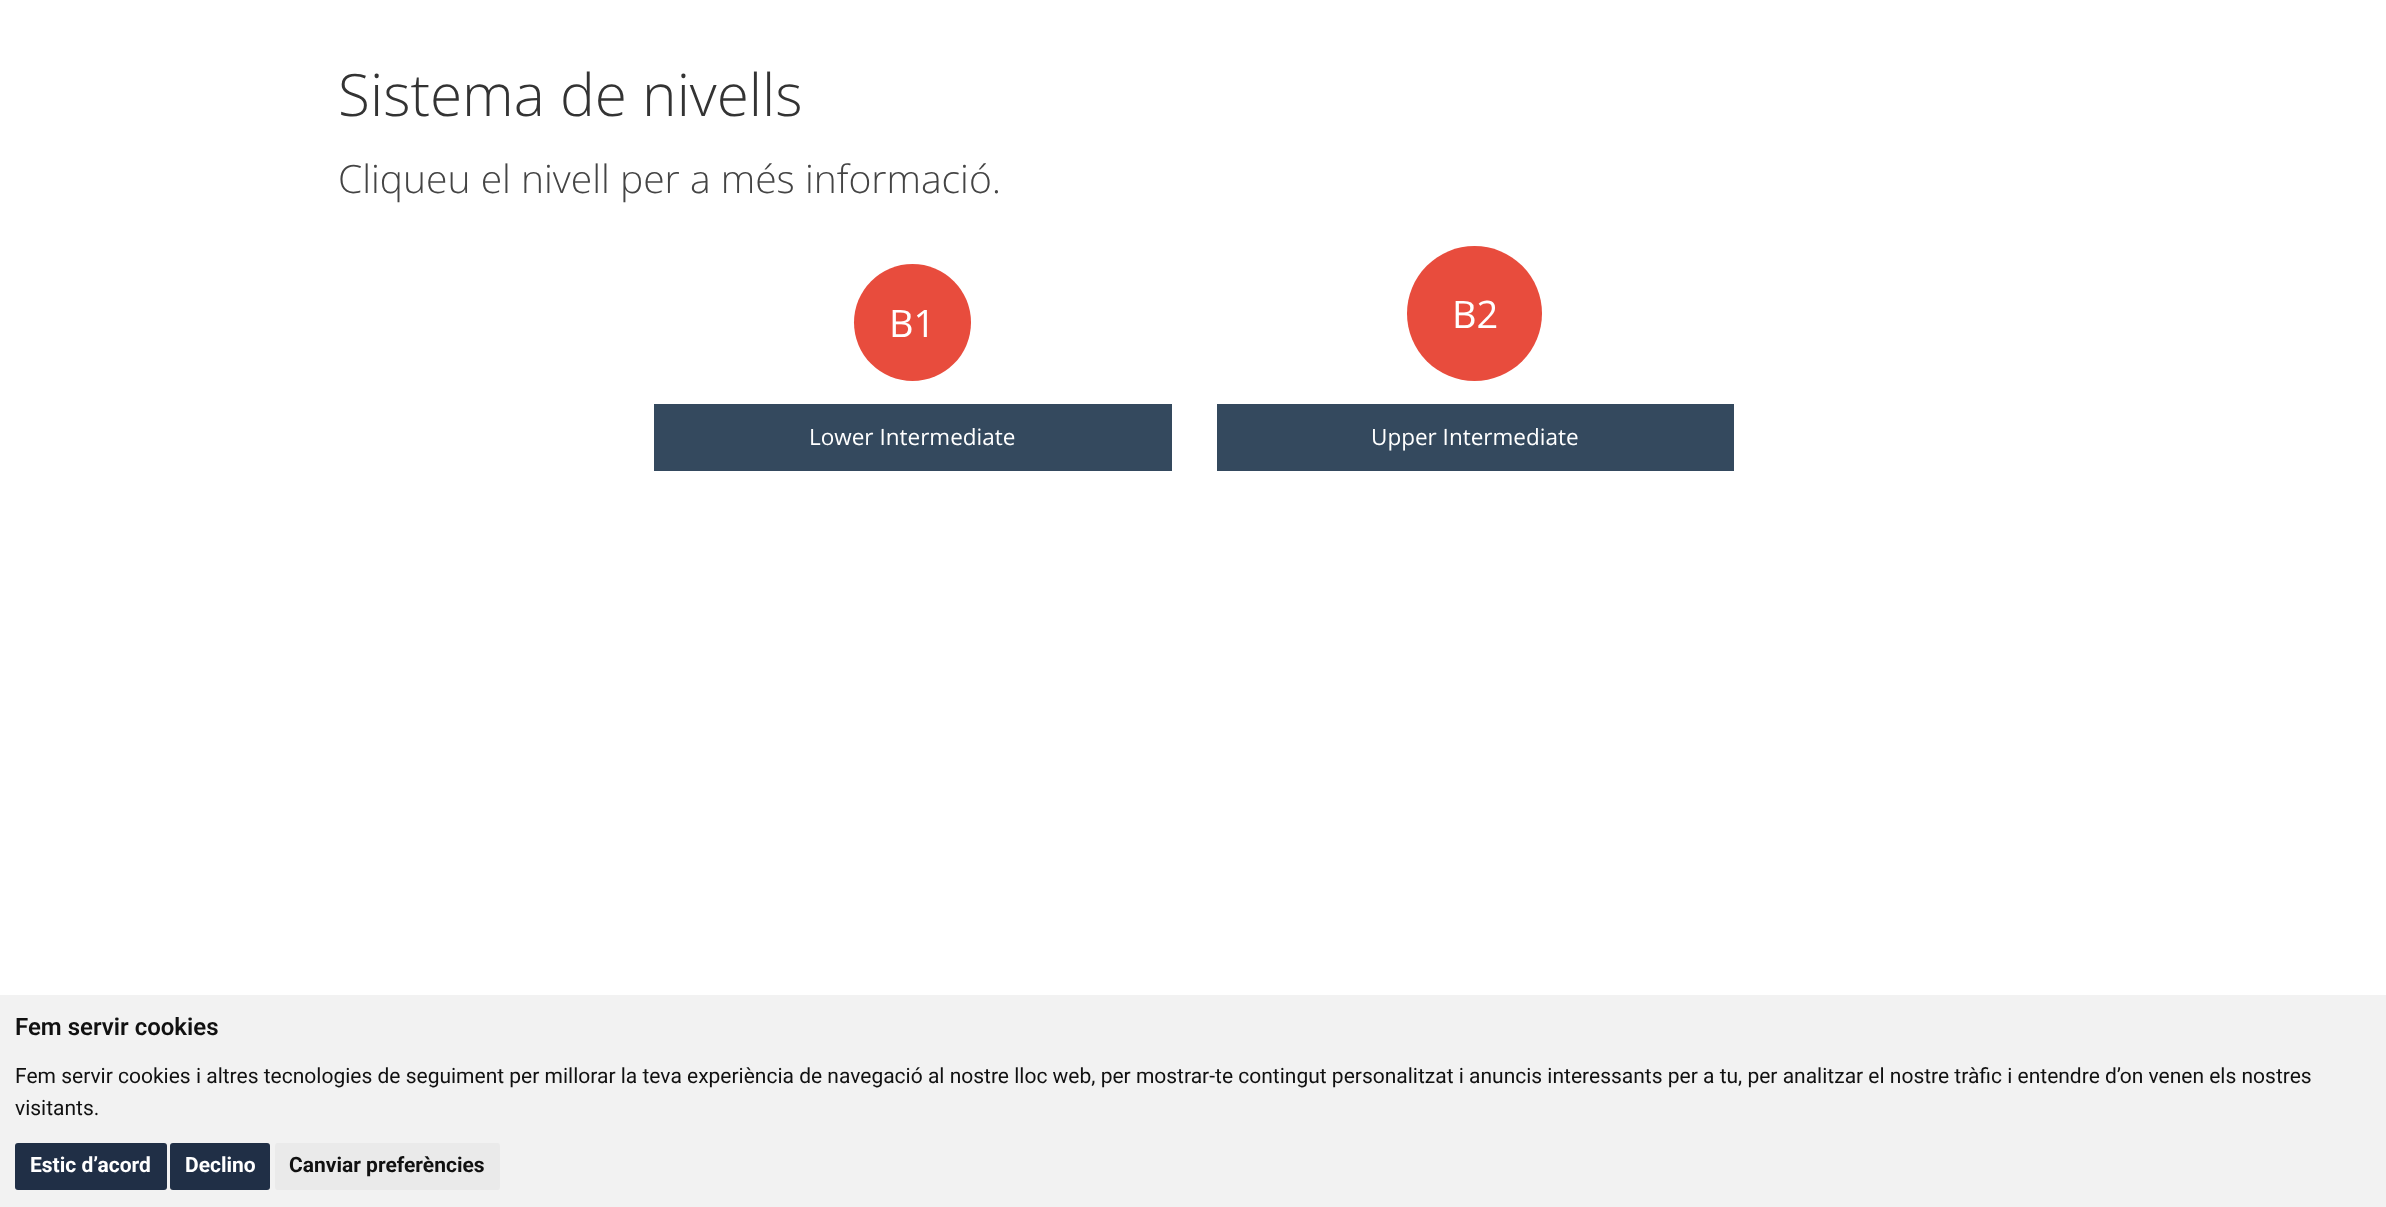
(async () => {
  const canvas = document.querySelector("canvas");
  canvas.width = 2386;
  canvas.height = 1207;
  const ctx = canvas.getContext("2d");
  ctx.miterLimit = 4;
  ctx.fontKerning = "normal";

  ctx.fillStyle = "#ffffff";
  ctx.fillRect(0, 0, 2386, 1207);
  ctx.fillStyle = "#e84c3d";
  ctx.beginPath();
  ctx.arc(912.5, 322.5, 58.5, 0, Math.PI * 2);
  ctx.fill();
  ctx.fillStyle = "#34495e";
  ctx.fillRect(654, 404, 518, 67);
  ctx.fillStyle = "#e84c3d";
  ctx.beginPath();
  ctx.arc(1474.5, 313.5, 67.5, 0, Math.PI * 2);
  ctx.fill();
  ctx.fillStyle = "#34495e";
  ctx.fillRect(1217, 404, 517, 67);
  ctx.fillStyle = "#f2f2f2";
  ctx.fillRect(0, 995, 2386, 212);
  ctx.fillStyle = "#202f46";
  ctx.beginPath();
  ctx.roundRect(15, 1143, 152, 47, 3);
  ctx.fill();
  ctx.beginPath();
  ctx.roundRect(170, 1143, 100, 47, 3);
  ctx.fill();
  ctx.fillStyle = "#eaeaea";
  ctx.beginPath();
  ctx.roundRect(275, 1143, 225, 47, 3);
  ctx.fill();
  ctx.font = "300 58.5px Open Sans";
  ctx.fillStyle = "#333333";
  ctx.fillText("Sistema de nivells", 338, 116);
  ctx.font = "300 39px Open Sans";
  ctx.fillStyle = "#444444";
  ctx.fillText("Cliqueu el nivell per a més informació.", 338, 193);
  ctx.font = "38px Open Sans";
  ctx.fillStyle = "#ffffff";
  ctx.fillText("B1", 889, 337);
  ctx.font = "22.5px Open Sans";
  ctx.fillText("Lower Intermediate", 809, 445);
  ctx.font = "38px Open Sans";
  ctx.fillText("B2", 1452, 328);
  ctx.font = "22.5px Open Sans";
  ctx.fillText("Upper Intermediate", 1371, 445);
  ctx.font = "600 24px Roboto";
  ctx.fillStyle = "#111111";
  ctx.fillText("Fem servir cookies", 15, 1035);
  ctx.font = "21px Roboto";
  ctx.fillText("Fem servir cookies i altres tecnologies de seguiment per millorar la teva experiència de navegació al nostre lloc web, per mostrar-te contingut personalitzat i anuncis interessants per a tu, per analitzar el nostre tràfic i entendre d’on venen els nostres", 15, 1083);
  ctx.fillText("visitants.", 15, 1115);
  ctx.font = "bold 21px Roboto";
  ctx.fillStyle = "#ffffff";
  ctx.fillText("Estic d’acord", 30, 1172);
  ctx.fillText("Declino", 185, 1172);
  ctx.fillStyle = "#111111";
  ctx.fillText("Canviar preferències", 289, 1172);
})();
